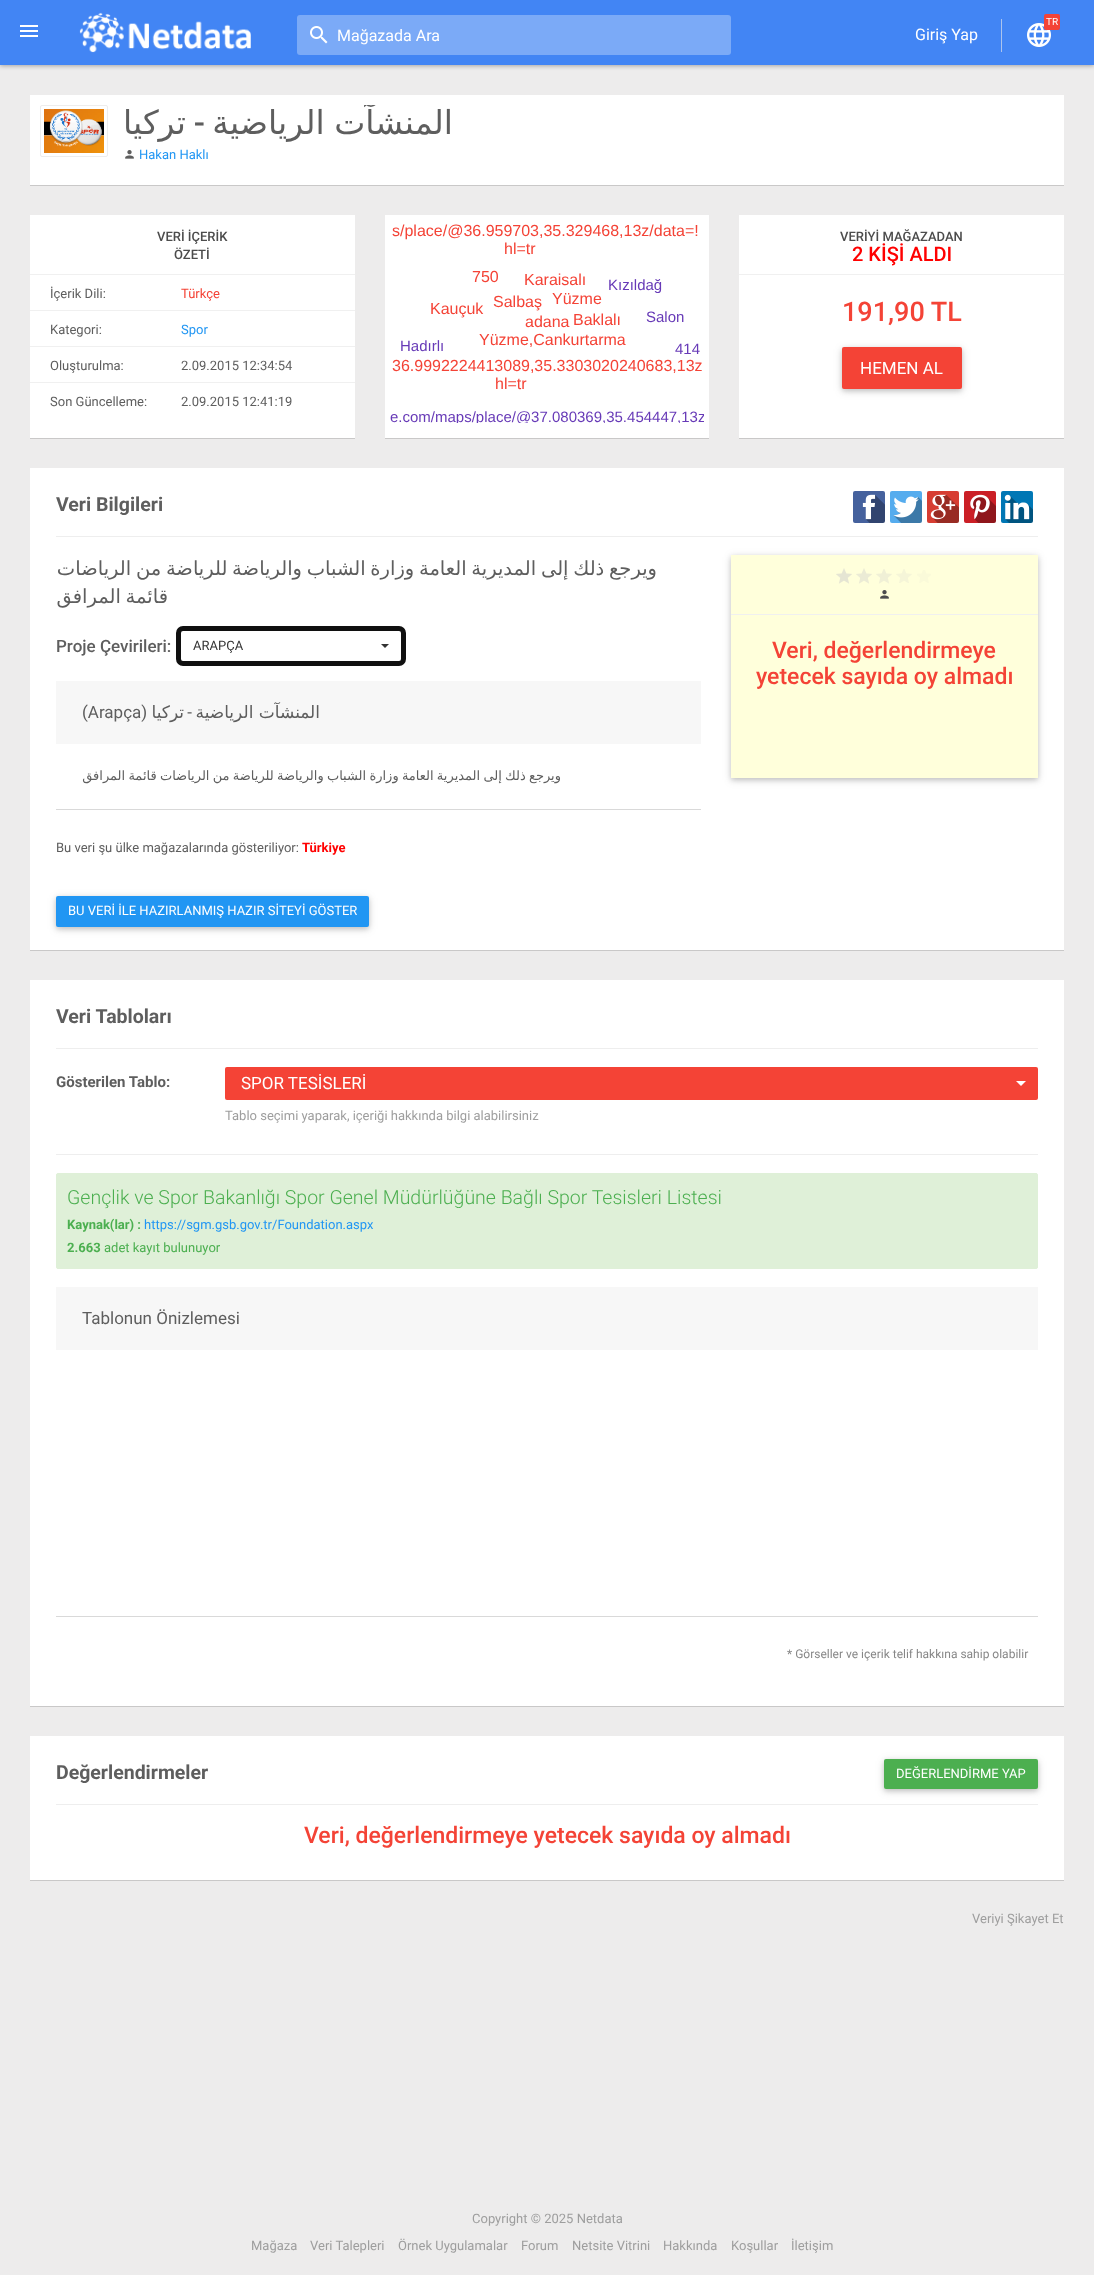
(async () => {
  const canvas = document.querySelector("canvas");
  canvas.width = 1094;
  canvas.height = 2275;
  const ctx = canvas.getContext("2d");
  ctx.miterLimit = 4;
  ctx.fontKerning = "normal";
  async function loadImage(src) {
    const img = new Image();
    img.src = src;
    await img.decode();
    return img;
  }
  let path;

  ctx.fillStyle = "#edecec";
  ctx.fillRect(0, 0, 1094, 2275);
  ctx.fillStyle = "rgba(0, 0, 0, 0.3)";
  ctx.filter = "blur(2px)";
  ctx.beginPath();
  ctx.rect(0, 1, 1094, 65);
  ctx.fill();
  ctx.filter = "none";
  for (const [x, y, w, h, color] of [
    [0, 0, 1094, 65, "#4285f4"],
    [20, 25, 18, 2, "#ffffff"],
    [20, 30, 18, 2, "#ffffff"],
    [20, 35, 18, 2, "#ffffff"],
  ]) {
    ctx.fillStyle = color;
    ctx.fillRect(x, y, w, h);
  }
  ctx.drawImage(await loadImage("img/1.png"), 79, 12, 172, 41);
  ctx.fillStyle = "#7baaf7";
  ctx.beginPath();
  ctx.roundRect(297, 15, 434, 40, 3);
  ctx.fill();
  ctx.drawImage(await loadImage("img/2.png"), 310, 26, 18, 18);
  ctx.fillStyle = "#acc4ed";
  ctx.fillRect(1001, 19, 1, 33);
  ctx.drawImage(await loadImage("img/3.png"), 1027, 23, 24, 24);
  ctx.fillStyle = "#f44336";
  ctx.beginPath();
  ctx.roundRect(1044, 14, 16, 16, 2);
  ctx.fill();
  ctx.fillStyle = "rgba(0, 0, 0, 0.15)";
  ctx.filter = "blur(0.5px)";
  ctx.beginPath();
  ctx.rect(30, 96, 1034, 90);
  ctx.fill();
  ctx.filter = "none";
  ctx.fillStyle = "#ffffff";
  ctx.fillRect(30, 95, 1034, 90);
  ctx.beginPath();
  ctx.roundRect(40.5, 105.5, 67, 51, 1.5);
  ctx.strokeStyle = "#ededed";
  ctx.stroke();
  ctx.drawImage(await loadImage("img/4.png"), 44, 109, 60, 44);
  ctx.drawImage(await loadImage("img/5.png"), 125, 150, 9, 9);
  ctx.fillStyle = "rgba(0, 0, 0, 0.15)";
  ctx.filter = "blur(0.5px)";
  ctx.beginPath();
  ctx.rect(30, 216, 325, 223);
  ctx.fill();
  ctx.filter = "none";
  for (const [x, y, w, h, color] of [
    [30, 215, 325, 223, "#ffffff"],
    [30, 274, 325, 1, "#f0f0f0"],
    [30, 310, 325, 1, "#f0f0f0"],
    [30, 346, 325, 1, "#f0f0f0"],
    [30, 382, 325, 1, "#f0f0f0"],
  ]) {
    ctx.fillStyle = color;
    ctx.fillRect(x, y, w, h);
  }
  ctx.fillStyle = "rgba(0, 0, 0, 0.15)";
  ctx.filter = "blur(0.5px)";
  ctx.beginPath();
  ctx.rect(385, 216, 324, 223);
  ctx.fill();
  ctx.filter = "none";
  ctx.fillStyle = "#ffffff";
  ctx.fillRect(385, 215, 324, 223);
  ctx.fillStyle = "rgba(0, 0, 0, 0.15)";
  ctx.filter = "blur(0.5px)";
  ctx.beginPath();
  ctx.rect(739, 216, 325, 223);
  ctx.fill();
  ctx.filter = "none";
  ctx.fillStyle = "#ffffff";
  ctx.fillRect(739, 215, 325, 223);
  ctx.fillStyle = "#f0f0f0";
  ctx.fillRect(739, 274, 325, 1);
  ctx.fillStyle = "rgba(0, 0, 0, 0.12)";
  ctx.filter = "blur(5px)";
  ctx.beginPath();
  ctx.roundRect(842, 349, 120, 42, 2);
  ctx.fill();
  ctx.filter = "none";
  ctx.fillStyle = "rgba(0, 0, 0, 0.16)";
  ctx.filter = "blur(2.5px)";
  ctx.beginPath();
  ctx.roundRect(842, 349, 120, 42, 2);
  ctx.fill();
  ctx.filter = "none";
  ctx.fillStyle = "#f44336";
  ctx.beginPath();
  ctx.roundRect(842, 347, 120, 42, 2);
  ctx.fill();
  ctx.fillStyle = "rgba(0, 0, 0, 0.15)";
  ctx.filter = "blur(0.5px)";
  ctx.beginPath();
  ctx.rect(30, 469, 1034, 482);
  ctx.fill();
  ctx.filter = "none";
  ctx.fillStyle = "#ffffff";
  ctx.fillRect(30, 468, 1034, 482);
  ctx.drawImage(await loadImage("img/6.png"), 853, 491, 32, 32);
  ctx.drawImage(await loadImage("img/7.png"), 890, 491, 32, 32);
  ctx.drawImage(await loadImage("img/8.png"), 927, 491, 32, 32);
  ctx.drawImage(await loadImage("img/9.png"), 964, 491, 32, 32);
  ctx.drawImage(await loadImage("img/10.png"), 1001, 491, 32, 32);
  ctx.fillStyle = "#eeeeee";
  ctx.fillRect(56, 536, 982, 1);
  ctx.beginPath();
  ctx.roundRect(178.5, 628.5, 225, 35, 4.5);
  ctx.strokeStyle = "#101010";
  ctx.lineWidth = 5;
  ctx.stroke();
  ctx.fillStyle = "#333333";
  path = new Path2D("M381 644H389L385 648Z");
  ctx.fill(path);
  ctx.save();
  ctx.beginPath();
  ctx.rect(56, 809, 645, 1);
  ctx.clip();
  ctx.fillStyle = "rgba(0, 0, 0, 0.15)";
  ctx.filter = "blur(0.5px)";
  ctx.beginPath();
  ctx.rect(56, 682, 645, 128);
  ctx.fill();
  ctx.filter = "none";
  ctx.restore();
  ctx.fillStyle = "#f7f7f7";
  ctx.fillRect(56, 681, 645, 63);
  ctx.fillStyle = "rgba(0, 0, 0, 0.12)";
  ctx.filter = "blur(5px)";
  ctx.beginPath();
  ctx.roundRect(56, 898, 313, 31, 2);
  ctx.fill();
  ctx.filter = "none";
  ctx.fillStyle = "rgba(0, 0, 0, 0.16)";
  ctx.filter = "blur(2.5px)";
  ctx.beginPath();
  ctx.roundRect(56, 898, 313, 31, 2);
  ctx.fill();
  ctx.filter = "none";
  ctx.fillStyle = "#2196f3";
  ctx.beginPath();
  ctx.roundRect(56, 896, 313, 31, 2);
  ctx.fill();
  ctx.fillStyle = "rgba(0, 0, 0, 0.12)";
  ctx.filter = "blur(5px)";
  ctx.beginPath();
  ctx.rect(731, 557, 307, 223);
  ctx.fill();
  ctx.filter = "none";
  ctx.fillStyle = "rgba(0, 0, 0, 0.16)";
  ctx.filter = "blur(2.5px)";
  ctx.beginPath();
  ctx.rect(731, 557, 307, 223);
  ctx.fill();
  ctx.filter = "none";
  ctx.fillStyle = "#ffffdb";
  ctx.fillRect(731, 555, 307, 223);
  ctx.fillStyle = "#f0f0f0";
  ctx.fillRect(731, 614, 307, 1);
  ctx.drawImage(await loadImage("img/11.png"), 836, 568, 16, 16);
  ctx.drawImage(await loadImage("img/12.png"), 856, 568, 16, 16);
  ctx.drawImage(await loadImage("img/13.png"), 876, 569, 16, 15);
  ctx.drawImage(await loadImage("img/14.png"), 896, 569, 16, 14);
  ctx.drawImage(await loadImage("img/15.png"), 917, 570, 14, 13);
  ctx.drawImage(await loadImage("img/16.png"), 880, 590, 9, 9);
  ctx.fillStyle = "rgba(0, 0, 0, 0.15)";
  ctx.filter = "blur(0.5px)";
  ctx.beginPath();
  ctx.rect(30, 981, 1034, 726);
  ctx.fill();
  ctx.filter = "none";
  ctx.fillStyle = "#ffffff";
  ctx.fillRect(30, 980, 1034, 726);
  ctx.fillStyle = "#eeeeee";
  ctx.fillRect(56, 1048, 982, 1);
  ctx.fillStyle = "#f44336";
  ctx.beginPath();
  ctx.roundRect(225, 1067, 813, 33, 2);
  ctx.fill();
  ctx.fillStyle = "#ffffff";
  path = new Path2D("M1016 1081H1026L1021 1086Z");
  ctx.fill(path);
  ctx.fillStyle = "#eeeeee";
  ctx.fillRect(56, 1154, 982, 1);
  ctx.fillStyle = "#dff0d8";
  ctx.beginPath();
  ctx.roundRect(56.5, 1173.5, 981, 95, 1.5);
  ctx.fill();
  ctx.strokeStyle = "#dff0d8";
  ctx.lineWidth = 1;
  ctx.stroke();
  ctx.save();
  ctx.beginPath();
  ctx.rect(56, 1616, 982, 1);
  ctx.clip();
  ctx.fillStyle = "rgba(0, 0, 0, 0.15)";
  ctx.filter = "blur(0.5px)";
  ctx.beginPath();
  ctx.rect(56, 1288, 982, 329);
  ctx.fill();
  ctx.filter = "none";
  ctx.restore();
  ctx.fillStyle = "#f7f7f7";
  ctx.fillRect(56, 1287, 982, 63);
  ctx.fillStyle = "rgba(0, 0, 0, 0.15)";
  ctx.filter = "blur(0.5px)";
  ctx.beginPath();
  ctx.rect(30, 1737, 1034, 144);
  ctx.fill();
  ctx.filter = "none";
  ctx.fillStyle = "#ffffff";
  ctx.fillRect(30, 1736, 1034, 144);
  ctx.fillStyle = "#eeeeee";
  ctx.fillRect(56, 1804, 982, 1);
  ctx.fillStyle = "rgba(0, 0, 0, 0.12)";
  ctx.filter = "blur(5px)";
  ctx.beginPath();
  ctx.roundRect(884, 1761, 154, 30, 2);
  ctx.fill();
  ctx.filter = "none";
  ctx.fillStyle = "rgba(0, 0, 0, 0.16)";
  ctx.filter = "blur(2.5px)";
  ctx.beginPath();
  ctx.roundRect(884, 1761, 154, 30, 2);
  ctx.fill();
  ctx.filter = "none";
  ctx.fillStyle = "#4caf50";
  ctx.beginPath();
  ctx.roundRect(884, 1759, 154, 30, 2);
  ctx.fill();
  ctx.font = "16px Roboto";
  ctx.fillStyle = "#ffffff";
  ctx.fillText("Mağazada Ara", 337, 41);
  ctx.fillText("Giriş Yap", 915, 40);
  ctx.font = "10px Roboto";
  ctx.fillText("TR", 1046, 25);
  ctx.direction = "rtl";
  ctx.font = "33px DejaVu Sans";
  ctx.fillStyle = "#5e5e5e";
  ctx.fillText("تركيا", 186, 134);
  ctx.font = "500 33px Roboto";
  ctx.fillText("-", 205, 134);
  ctx.save();
  ctx.beginPath();
  ctx.rect(123, 105, 931, 60);
  ctx.clip();
  ctx.wordSpacing = "-1px";
  ctx.font = "33px DejaVu Sans";
  ctx.fillText("المنشآت الرياضية", 453, 134);
  ctx.restore();
  ctx.direction = "ltr";
  ctx.font = "13px Roboto";
  ctx.fillStyle = "#2196f3";
  ctx.fillText("Hakan Haklı", 139, 159);
  ctx.font = "500 13px Roboto";
  ctx.fillStyle = "#4c4c4c";
  ctx.fillText("VERİ İÇERİK", 157, 241);
  ctx.fillText("ÖZETİ", 174, 259);
  ctx.font = "13px Roboto";
  ctx.fillStyle = "#5e5e5e";
  ctx.fillText("İçerik Dili:", 50, 298);
  ctx.fillStyle = "#f44336";
  ctx.fillText("Türkçe", 181, 298);
  ctx.fillStyle = "#5e5e5e";
  ctx.fillText("Kategori:", 50, 334);
  ctx.fillStyle = "#2196f3";
  ctx.fillText("Spor", 181, 334);
  ctx.fillStyle = "#5e5e5e";
  for (const [text, x, y] of [
    ["Oluşturulma:", 50, 370],
    ["2.09.2015 12:34:54", 181, 370],
    ["Son Güncelleme:", 50, 406],
    ["2.09.2015 12:41:19", 181, 406],
  ]) {
    ctx.fillText(text, x, y);
  }
  ctx.font = "16px Liberation Sans";
  ctx.fillStyle = "#f44336";
  for (const [text, x, y] of [
    ["s/place/@36.959703,35.329468,13z/data=!", 392, 236],
    ["hl=tr", 504, 254],
    ["750", 472, 282],
    ["Karaisalı", 524, 285],
  ]) {
    ctx.fillText(text, x, y);
  }
  ctx.font = "15px Liberation Sans";
  ctx.fillStyle = "#673ab7";
  ctx.fillText("Kızıldağ", 608, 290);
  ctx.font = "16px Liberation Sans";
  ctx.fillStyle = "#f44336";
  for (const [text, x, y] of [
    ["Kauçuk", 430, 314],
    ["Salbaş", 493, 307],
    ["Yüzme", 552, 304],
  ]) {
    ctx.fillText(text, x, y);
  }
  ctx.font = "15px Liberation Sans";
  ctx.fillStyle = "#673ab7";
  ctx.fillText("Salon", 646, 322);
  ctx.font = "16px Liberation Sans";
  ctx.fillStyle = "#f44336";
  ctx.fillText("adana", 525, 327);
  ctx.fillText("Baklalı", 573, 325);
  ctx.font = "15px Liberation Sans";
  ctx.fillStyle = "#673ab7";
  ctx.fillText("Hadırlı", 400, 351);
  ctx.font = "16px Liberation Sans";
  ctx.fillStyle = "#f44336";
  ctx.fillText("Yüzme,Cankurtarma", 479, 345);
  ctx.font = "15px Liberation Sans";
  ctx.fillStyle = "#673ab7";
  ctx.fillText("414", 675, 354);
  ctx.font = "16px Liberation Sans";
  ctx.fillStyle = "#f44336";
  ctx.fillText("36.9992224413089,35.3303020240683,13z", 392, 371);
  ctx.fillText("hl=tr", 495, 389);
  ctx.save();
  ctx.beginPath();
  ctx.rect(390, 220, 314, 203);
  ctx.clip();
  ctx.font = "15px Liberation Sans";
  ctx.fillStyle = "#673ab7";
  ctx.fillText("e.com/maps/place/@37.080369,35.454447,13z", 390, 422);
  ctx.restore();
  ctx.font = "500 13px Roboto";
  ctx.fillStyle = "#4c4c4c";
  ctx.fillText("VERİYİ MAĞAZADAN", 840, 241);
  ctx.font = "500 20px Roboto";
  ctx.fillStyle = "#ff0000";
  ctx.fillText("2 KİŞİ ALDI", 852, 261);
  ctx.font = "500 27px Roboto";
  ctx.fillStyle = "#f44336";
  ctx.fillText("191,90 TL", 842, 321);
  ctx.font = "17px Roboto";
  ctx.fillStyle = "#ffffff";
  ctx.fillText("HEMEN AL", 860, 374);
  ctx.font = "bold 19.5px Roboto";
  ctx.fillStyle = "#5e5e5e";
  ctx.fillText("Veri Bilgileri", 56, 511);
  ctx.wordSpacing = "-1.5px";
  ctx.direction = "rtl";
  ctx.font = "19.5px DejaVu Sans";
  ctx.fillText("ويرجع ذلك إلى المديرية العامة وزارة الشباب والرياضة للرياضة من الرياضات", 657, 575);
  ctx.fillText("قائمة المرافق", 168, 603);
  ctx.wordSpacing = "0px";
  ctx.direction = "ltr";
  ctx.font = "500 17px Roboto";
  ctx.fillText("Proje Çevirileri:", 56, 652);
  ctx.font = "13px Roboto";
  ctx.fillStyle = "#333333";
  ctx.fillText("ARAPÇA", 193, 650);
  ctx.font = "17px Roboto";
  ctx.fillStyle = "#5e5e5e";
  ctx.fillText("(Arapça)", 82, 718);
  ctx.direction = "rtl";
  ctx.font = "17px DejaVu Sans";
  ctx.fillText("تركيا", 184, 718);
  ctx.font = "17px Roboto";
  ctx.fillText("-", 192, 718);
  ctx.font = "17px DejaVu Sans";
  ctx.fillText("المنشآت الرياضية", 320, 718);
  ctx.wordSpacing = "-0.9px";
  ctx.font = "13px DejaVu Sans";
  ctx.fillText("ويرجع ذلك إلى المديرية العامة وزارة الشباب والرياضة للرياضة من الرياضات قائمة المرافق", 561, 780);
  ctx.wordSpacing = "0px";
  ctx.direction = "ltr";
  ctx.font = "13px Roboto";
  ctx.fillText("Bu veri şu ülke mağazalarında gösteriliyor:", 56, 852);
  ctx.font = "bold 13px Roboto";
  ctx.fillStyle = "#ff0000";
  ctx.fillText("Türkiye", 302, 852);
  ctx.font = "13px Roboto";
  ctx.fillStyle = "#ffffff";
  ctx.fillText("BU VERİ İLE HAZIRLANMIŞ HAZIR SİTEYİ GÖSTER", 68, 915);
  ctx.font = "500 23px Roboto";
  ctx.fillStyle = "#f44336";
  ctx.fillText("Veri, değerlendirmeye", 772, 658);
  ctx.fillText("yetecek sayıda oy almadı", 756, 684);
  ctx.font = "bold 19.5px Roboto";
  ctx.fillStyle = "#5e5e5e";
  ctx.fillText("Veri Tabloları", 56, 1023);
  ctx.font = "bold 15px Roboto";
  ctx.fillText("Gösterilen Tablo:", 56, 1087);
  ctx.font = "17px Roboto";
  ctx.fillStyle = "#ffffff";
  ctx.fillText("SPOR TESİSLERİ", 241, 1089);
  ctx.font = "13px Roboto";
  ctx.fillStyle = "#9e9e9e";
  ctx.fillText("Tablo seçimi yaparak, içeriği hakkında bilgi alabilirsiniz", 225, 1120);
  ctx.font = "300 19.5px Roboto";
  ctx.fillStyle = "#4caf50";
  ctx.fillText("Gençlik ve Spor Bakanlığı Spor Genel Müdürlüğüne Bağlı Spor Tesisleri Listesi", 67, 1204);
  ctx.font = "bold 13px Roboto";
  ctx.fillText("Kaynak(lar) :", 67, 1229);
  ctx.font = "13px Roboto";
  ctx.fillStyle = "#2196f3";
  ctx.fillText("https://sgm.gsb.gov.tr/Foundation.aspx", 144, 1229);
  ctx.font = "bold 13px Roboto";
  ctx.fillStyle = "#4caf50";
  ctx.fillText("2.663", 67, 1252);
  ctx.font = "13px Roboto";
  ctx.fillText("adet kayıt bulunuyor", 104, 1252);
  ctx.font = "17px Roboto";
  ctx.fillStyle = "#5e5e5e";
  ctx.fillText("Tablonun Önizlemesi", 82, 1324);
  ctx.font = "12px Roboto";
  ctx.fillStyle = "#878787";
  ctx.fillText("* Görseller ve içerik telif hakkına sahip olabilir", 787, 1658);
  ctx.font = "bold 19.5px Roboto";
  ctx.fillStyle = "#5e5e5e";
  ctx.fillText("Değerlendirmeler", 56, 1779);
  ctx.font = "13px Roboto";
  ctx.fillStyle = "#ffffff";
  ctx.fillText("DEĞERLENDİRME YAP", 896, 1778);
  ctx.font = "500 23px Roboto";
  ctx.fillStyle = "#f44336";
  ctx.fillText("Veri, değerlendirmeye yetecek sayıda oy almadı", 304, 1843);
  ctx.font = "13px Roboto";
  ctx.fillStyle = "#9e9e9e";
  for (const [text, x, y] of [
    ["Veriyi Şikayet Et", 972, 1923],
    ["Copyright © 2025 Netdata", 472, 2223],
    ["Mağaza", 251, 2250],
    ["Veri Talepleri", 310, 2250],
    ["Örnek Uygulamalar", 398, 2250],
    ["Forum", 521, 2250],
    ["Netsite Vitrini", 572, 2250],
    ["Hakkında", 663, 2250],
    ["Koşullar", 731, 2250],
    ["İletişim", 791, 2250],
  ]) {
    ctx.fillText(text, x, y);
  }
})();
